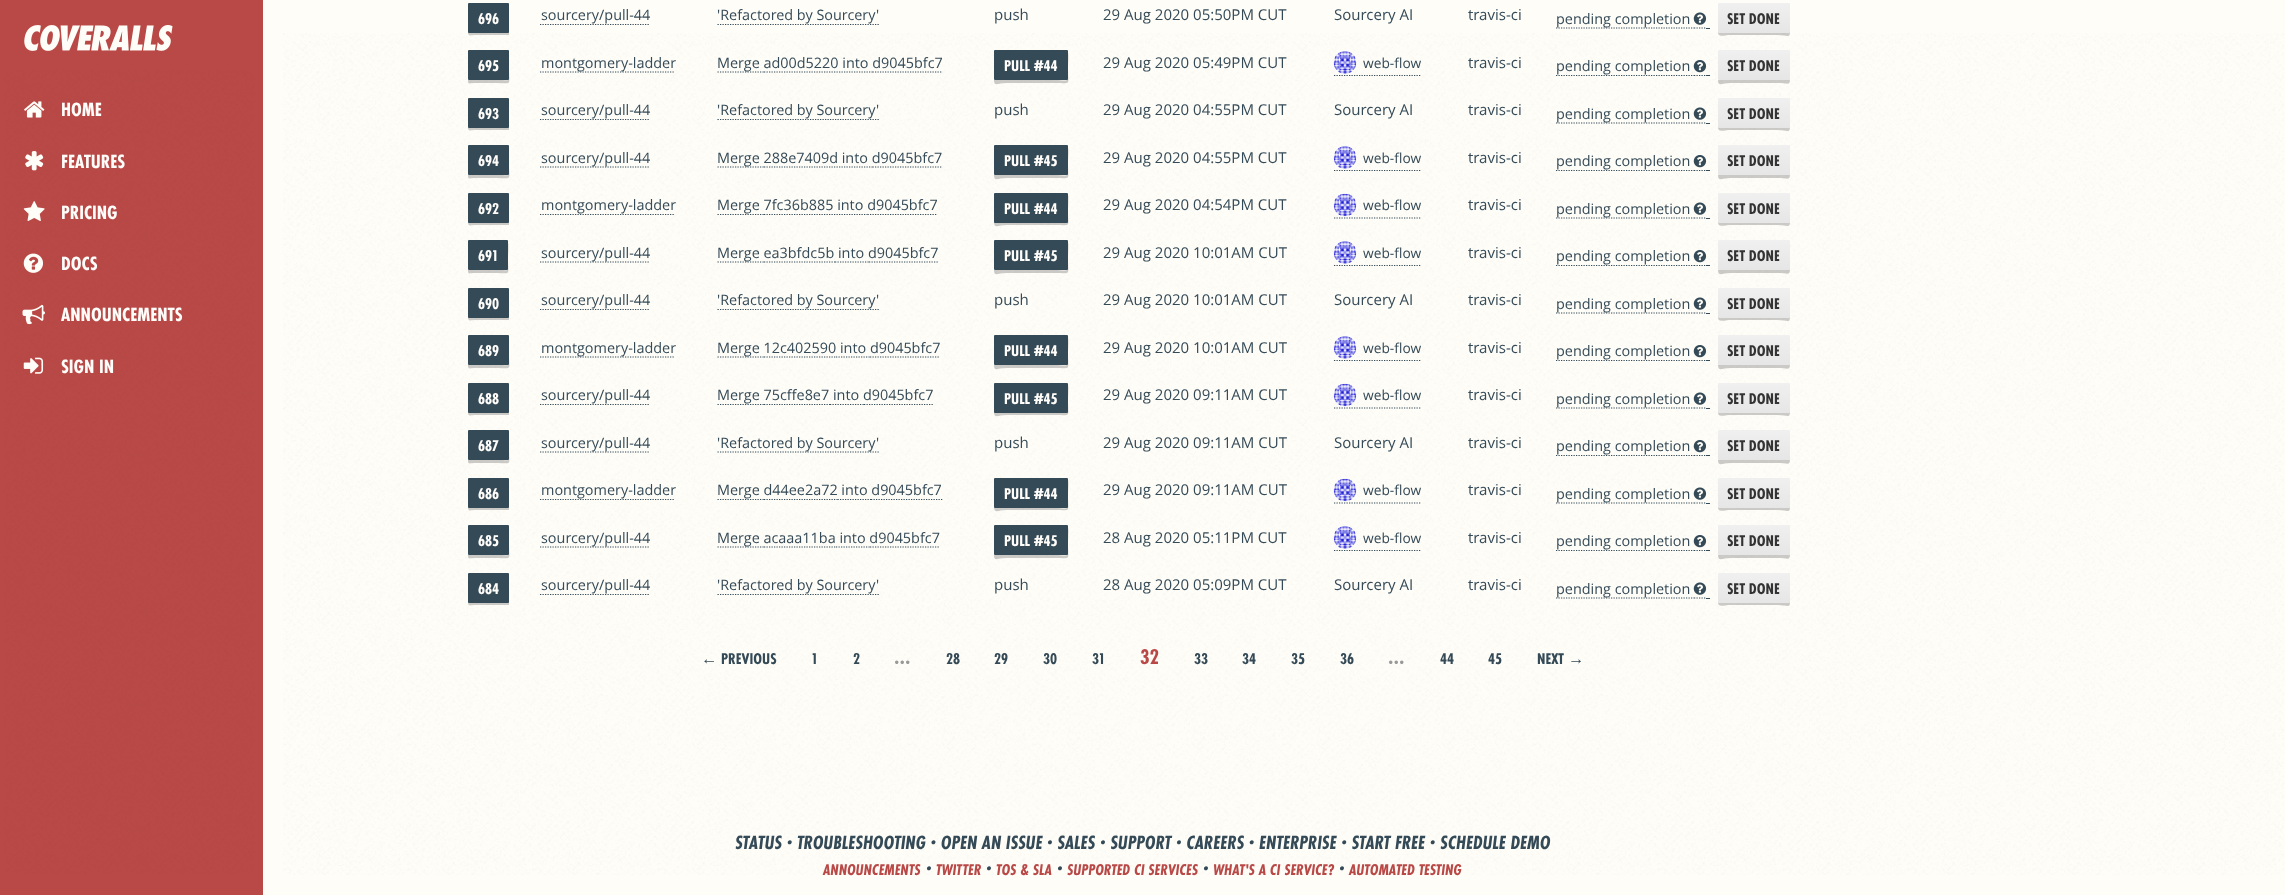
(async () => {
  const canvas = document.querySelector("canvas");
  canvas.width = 2285;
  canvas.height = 895;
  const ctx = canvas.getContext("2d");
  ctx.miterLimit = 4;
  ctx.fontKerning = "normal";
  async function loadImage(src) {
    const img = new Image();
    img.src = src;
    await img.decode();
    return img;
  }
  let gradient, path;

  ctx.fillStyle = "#fefdf8";
  ctx.fillRect(0, 0, 2285, 895);
  ctx.drawImage(await loadImage("img/1.png"), 283, 33, 2001, 842);
  ctx.fillStyle = "#b94947";
  ctx.fillRect(0, 0, 263, 895);
  ctx.drawImage(await loadImage("img/2.png"), 4, 70, 251, 804);
  ctx.drawImage(await loadImage("img/3.png"), 24, 25, 149, 26);
  ctx.drawImage(await loadImage("img/4.png"), 24, 101, 21, 17);
  ctx.drawImage(await loadImage("img/5.png"), 25, 151, 19, 20);
  ctx.drawImage(await loadImage("img/6.png"), 23, 201, 22, 20);
  ctx.drawImage(await loadImage("img/7.png"), 23, 253, 20, 20);
  ctx.drawImage(await loadImage("img/8.png"), 22, 304, 23, 21);
  ctx.drawImage(await loadImage("img/9.png"), 23, 357, 21, 17);
  ctx.fillStyle = "rgba(0, 0, 0, 0.2)";
  path = new Path2D("M468 32C468 37 470 35 476 35H508H509V5V27C509 34 509 32 501 32Z");
  ctx.fill(path);
  ctx.fillStyle = "#354a57";
  ctx.beginPath();
  ctx.roundRect(468, 3, 41, 30, 1);
  ctx.fill();
  path = new Path2D("M540 24.5H650");
  ctx.strokeStyle = "#354a57";
  ctx.lineWidth = 1.2;
  ctx.setLineDash([1.25, 1.25]);
  ctx.stroke(path);
  path = new Path2D("M717.5 24.5H880");
  ctx.stroke(path);
  path = new Path2D("M1556 28H1694");
  ctx.stroke(path);
  path = new Path2D("M1694 28H1706");
  ctx.stroke(path);
  ctx.fillRect(1706, 28, 4, 1);
  ctx.drawImage(await loadImage("img/10.png"), 1693, 12, 14, 13);
  ctx.fillStyle = "rgba(0, 0, 0, 0.2)";
  path = new Path2D("M1718 32C1718 38 1723 35 1731 35H1777C1788 35 1790 39 1790 31C1790 32 1789 32 1789 32Z");
  ctx.fill(path);
  gradient = ctx.createLinearGradient(1754, 2.5, 1754, 33);
  gradient.addColorStop(0, "#f0f0f0");
  gradient.addColorStop(1, "#e6e6e6");
  ctx.fillStyle = gradient;
  ctx.beginPath();
  ctx.roundRect(1718, 3, 72, 30, 1);
  ctx.fill();
  ctx.fillStyle = "rgba(0, 0, 0, 0.2)";
  path = new Path2D("M468 80C468 85 469 83 476 83H495C513 83 509 87 509 68V53V75C509 82 509 80 501 80Z");
  ctx.fill(path);
  ctx.fillStyle = "#354a57";
  ctx.beginPath();
  ctx.roundRect(468, 50, 41, 30, 1);
  ctx.fill();
  path = new Path2D("M540 72H675");
  ctx.stroke(path);
  path = new Path2D("M717.5 72H764");
  ctx.stroke(path);
  path = new Path2D("M764 72H839");
  ctx.stroke(path);
  path = new Path2D("M839 72H872.5");
  ctx.stroke(path);
  path = new Path2D("M872.5 72H942.5");
  ctx.stroke(path);
  ctx.fillStyle = "rgba(0, 0, 0, 0.2)";
  path = new Path2D("M994 80C994 87 997 83 1007 83H1055C1072 83 1068 86 1068 68C1068 66 1069 54 1068 53V74C1068 83 1067 80 1054 80Z");
  ctx.fill(path);
  ctx.fillStyle = "#354a57";
  ctx.beginPath();
  ctx.roundRect(994, 50, 74, 30, 1);
  ctx.fill();
  path = new Path2D("M1334 75.5H1421");
  ctx.stroke(path);
  ctx.drawImage(await loadImage("img/11.png"), 1333, 51, 24, 23);
  path = new Path2D("M1556 75.5H1694");
  ctx.stroke(path);
  path = new Path2D("M1694 75.5H1706");
  ctx.stroke(path);
  ctx.fillRect(1706, 75, 4, 1);
  ctx.drawImage(await loadImage("img/12.png"), 1693, 60, 14, 13);
  ctx.fillStyle = "rgba(0, 0, 0, 0.2)";
  path = new Path2D("M1718 80C1718 87 1722 83 1731 83H1777C1788 83 1790 86 1790 79C1790 79 1789 80 1789 80Z");
  ctx.fill(path);
  gradient = ctx.createLinearGradient(1754, 50, 1754, 80);
  gradient.addColorStop(0, "#f0f0f0");
  gradient.addColorStop(1, "#e6e6e6");
  ctx.fillStyle = gradient;
  ctx.beginPath();
  ctx.roundRect(1718, 50, 72, 30, 1);
  ctx.fill();
  ctx.fillStyle = "rgba(0, 0, 0, 0.2)";
  path = new Path2D("M468 127C468 132 470 130 476 130H508H509V100V122C509 129 509 128 501 128Z");
  ctx.fill(path);
  ctx.fillStyle = "#354a57";
  ctx.beginPath();
  ctx.roundRect(468, 98, 41, 30, 1);
  ctx.fill();
  path = new Path2D("M540 119.5H650");
  ctx.stroke(path);
  path = new Path2D("M717.5 119.5H880");
  ctx.stroke(path);
  path = new Path2D("M1556 123H1694");
  ctx.stroke(path);
  path = new Path2D("M1694 123H1706");
  ctx.stroke(path);
  ctx.fillRect(1706, 123, 4, 1);
  ctx.drawImage(await loadImage("img/13.png"), 1693, 107, 14, 13);
  ctx.fillStyle = "rgba(0, 0, 0, 0.2)";
  path = new Path2D("M1718 127C1718 133 1723 130 1731 130H1777C1788 130 1790 134 1790 126C1790 127 1789 127 1789 128Z");
  ctx.fill(path);
  gradient = ctx.createLinearGradient(1754, 98, 1754, 128);
  gradient.addColorStop(0, "#f0f0f0");
  gradient.addColorStop(1, "#e6e6e6");
  ctx.fillStyle = gradient;
  ctx.beginPath();
  ctx.roundRect(1718, 98, 72, 30, 1);
  ctx.fill();
  ctx.fillStyle = "rgba(0, 0, 0, 0.2)";
  path = new Path2D("M468 175C468 180 469 178 476 178H495C513 178 509 182 509 163V148V170C509 177 509 175 501 175Z");
  ctx.fill(path);
  ctx.fillStyle = "#354a57";
  ctx.beginPath();
  ctx.roundRect(468, 145, 41, 30, 1);
  ctx.fill();
  path = new Path2D("M540 167H650");
  ctx.stroke(path);
  path = new Path2D("M717.5 167H764");
  ctx.stroke(path);
  path = new Path2D("M764 167H839");
  ctx.stroke(path);
  path = new Path2D("M839 167H872.5");
  ctx.stroke(path);
  path = new Path2D("M872.5 167H942.5");
  ctx.stroke(path);
  ctx.fillStyle = "rgba(0, 0, 0, 0.2)";
  path = new Path2D("M994 175C994 182 997 178 1007 178H1055C1072 178 1068 181 1068 163C1068 161 1069 149 1068 148V169C1068 178 1067 175 1054 175Z");
  ctx.fill(path);
  ctx.fillStyle = "#354a57";
  ctx.beginPath();
  ctx.roundRect(994, 145, 74, 30, 1);
  ctx.fill();
  path = new Path2D("M1334 170.5H1421");
  ctx.stroke(path);
  ctx.drawImage(await loadImage("img/14.png"), 1333, 146, 24, 23);
  path = new Path2D("M1556 170.5H1694");
  ctx.stroke(path);
  path = new Path2D("M1694 170.5H1706");
  ctx.stroke(path);
  ctx.fillRect(1706, 170, 4, 1);
  ctx.drawImage(await loadImage("img/15.png"), 1693, 155, 14, 13);
  ctx.fillStyle = "rgba(0, 0, 0, 0.2)";
  path = new Path2D("M1718 175C1718 182 1722 178 1731 178H1777C1788 178 1790 181 1790 174C1790 174 1789 175 1789 175Z");
  ctx.fill(path);
  gradient = ctx.createLinearGradient(1754, 145, 1754, 175);
  gradient.addColorStop(0, "#f0f0f0");
  gradient.addColorStop(1, "#e6e6e6");
  ctx.fillStyle = gradient;
  ctx.beginPath();
  ctx.roundRect(1718, 145, 72, 30, 1);
  ctx.fill();
  ctx.fillStyle = "rgba(0, 0, 0, 0.2)";
  path = new Path2D("M468 222C468 227 470 225 476 225H508H509V195V217C509 224 509 222 501 222Z");
  ctx.fill(path);
  ctx.fillStyle = "#354a57";
  ctx.beginPath();
  ctx.roundRect(468, 193, 41, 30, 1);
  ctx.fill();
  path = new Path2D("M540 214.5H675");
  ctx.stroke(path);
  path = new Path2D("M717.5 214.5H764");
  ctx.stroke(path);
  path = new Path2D("M764 214.5H834");
  ctx.stroke(path);
  path = new Path2D("M834 214.5H867.5");
  ctx.stroke(path);
  path = new Path2D("M867.5 214.5H937.5");
  ctx.stroke(path);
  ctx.fillStyle = "rgba(0, 0, 0, 0.2)";
  path = new Path2D("M994 222C994 229 998 225 1007 225H1055C1072 225 1068 228 1068 210C1068 208 1069 196 1068 195V217C1068 226 1067 222 1054 222H995Z");
  ctx.fill(path);
  ctx.fillStyle = "#354a57";
  ctx.beginPath();
  ctx.roundRect(994, 193, 74, 30, 1);
  ctx.fill();
  path = new Path2D("M1334 218H1421");
  ctx.stroke(path);
  ctx.drawImage(await loadImage("img/16.png"), 1333, 193, 24, 24);
  path = new Path2D("M1556 218H1694");
  ctx.stroke(path);
  path = new Path2D("M1694 218H1706");
  ctx.stroke(path);
  ctx.fillRect(1706, 218, 4, 1);
  ctx.drawImage(await loadImage("img/17.png"), 1693, 202, 14, 13);
  ctx.fillStyle = "rgba(0, 0, 0, 0.2)";
  path = new Path2D("M1718 222C1718 228 1723 225 1731 225H1777C1788 225 1790 229 1790 221C1790 222 1789 222 1789 222Z");
  ctx.fill(path);
  gradient = ctx.createLinearGradient(1754, 193, 1754, 223);
  gradient.addColorStop(0, "#f0f0f0");
  gradient.addColorStop(1, "#e6e6e6");
  ctx.fillStyle = gradient;
  ctx.beginPath();
  ctx.roundRect(1718, 193, 72, 30, 1);
  ctx.fill();
  ctx.fillStyle = "rgba(0, 0, 0, 0.2)";
  path = new Path2D("M468 270C468 275 469 273 475 273H494C512 273 508 277 508 258C508 256 509 244 508 243V264C508 272 508 270 500 270Z");
  ctx.fill(path);
  ctx.fillStyle = "#354a57";
  ctx.beginPath();
  ctx.roundRect(468, 240, 40, 30, 1);
  ctx.fill();
  path = new Path2D("M540 262H650");
  ctx.stroke(path);
  path = new Path2D("M717.5 262H764");
  ctx.stroke(path);
  path = new Path2D("M764 262H835");
  ctx.stroke(path);
  path = new Path2D("M835 262H869");
  ctx.stroke(path);
  path = new Path2D("M869 262H939");
  ctx.stroke(path);
  ctx.fillStyle = "rgba(0, 0, 0, 0.2)";
  path = new Path2D("M994 270C994 277 997 273 1007 273H1055C1072 273 1068 276 1068 258C1068 256 1069 244 1068 243V264C1068 273 1067 270 1054 270Z");
  ctx.fill(path);
  ctx.fillStyle = "#354a57";
  ctx.beginPath();
  ctx.roundRect(994, 240, 74, 30, 1);
  ctx.fill();
  path = new Path2D("M1334 265.5H1421");
  ctx.stroke(path);
  ctx.drawImage(await loadImage("img/18.png"), 1333, 241, 24, 23);
  path = new Path2D("M1556 265.5H1694");
  ctx.stroke(path);
  path = new Path2D("M1694 265.5H1706");
  ctx.stroke(path);
  ctx.fillRect(1706, 265, 4, 1);
  ctx.drawImage(await loadImage("img/19.png"), 1693, 250, 14, 13);
  ctx.fillStyle = "rgba(0, 0, 0, 0.2)";
  path = new Path2D("M1718 270C1718 277 1722 273 1731 273H1777C1788 273 1790 276 1790 269C1790 269 1789 270 1789 270Z");
  ctx.fill(path);
  gradient = ctx.createLinearGradient(1754, 240, 1754, 270);
  gradient.addColorStop(0, "#f0f0f0");
  gradient.addColorStop(1, "#e6e6e6");
  ctx.fillStyle = gradient;
  ctx.beginPath();
  ctx.roundRect(1718, 240, 72, 30, 1);
  ctx.fill();
  ctx.fillStyle = "rgba(0, 0, 0, 0.2)";
  path = new Path2D("M468 317C468 322 470 320 476 320H508H509V290V312C509 319 509 318 501 318Z");
  ctx.fill(path);
  ctx.fillStyle = "#354a57";
  ctx.beginPath();
  ctx.roundRect(468, 288, 41, 30, 1);
  ctx.fill();
  path = new Path2D("M540 309.5H650");
  ctx.stroke(path);
  path = new Path2D("M717.5 309.5H880");
  ctx.stroke(path);
  path = new Path2D("M1556 313H1694");
  ctx.stroke(path);
  path = new Path2D("M1694 313H1706");
  ctx.stroke(path);
  ctx.fillRect(1706, 313, 4, 1);
  ctx.drawImage(await loadImage("img/20.png"), 1693, 297, 14, 13);
  ctx.fillStyle = "rgba(0, 0, 0, 0.2)";
  path = new Path2D("M1718 317C1718 323 1723 320 1731 320H1777C1788 320 1790 324 1790 316C1790 317 1789 317 1789 318Z");
  ctx.fill(path);
  gradient = ctx.createLinearGradient(1754, 288, 1754, 318);
  gradient.addColorStop(0, "#f0f0f0");
  gradient.addColorStop(1, "#e6e6e6");
  ctx.fillStyle = gradient;
  ctx.beginPath();
  ctx.roundRect(1718, 288, 72, 30, 1);
  ctx.fill();
  ctx.fillStyle = "rgba(0, 0, 0, 0.2)";
  path = new Path2D("M468 365C468 370 469 368 476 368H495C513 368 509 372 509 353V338V360C509 367 509 365 501 365Z");
  ctx.fill(path);
  ctx.fillStyle = "#354a57";
  ctx.beginPath();
  ctx.roundRect(468, 335, 41, 30, 1);
  ctx.fill();
  path = new Path2D("M540 357H675");
  ctx.stroke(path);
  path = new Path2D("M717.5 357H764");
  ctx.stroke(path);
  path = new Path2D("M764 357H836");
  ctx.stroke(path);
  path = new Path2D("M836 357H870");
  ctx.stroke(path);
  path = new Path2D("M870 357H940");
  ctx.stroke(path);
  ctx.fillStyle = "rgba(0, 0, 0, 0.2)";
  path = new Path2D("M994 365C994 372 997 368 1007 368H1055C1072 368 1068 371 1068 353C1068 351 1069 339 1068 338V359C1068 368 1067 365 1054 365Z");
  ctx.fill(path);
  ctx.fillStyle = "#354a57";
  ctx.beginPath();
  ctx.roundRect(994, 335, 74, 30, 1);
  ctx.fill();
  path = new Path2D("M1334 360.5H1421");
  ctx.stroke(path);
  ctx.drawImage(await loadImage("img/21.png"), 1333, 336, 24, 23);
  path = new Path2D("M1556 360.5H1694");
  ctx.stroke(path);
  path = new Path2D("M1694 360.5H1706");
  ctx.stroke(path);
  ctx.fillRect(1706, 360, 4, 1);
  ctx.drawImage(await loadImage("img/22.png"), 1693, 345, 14, 13);
  ctx.fillStyle = "rgba(0, 0, 0, 0.2)";
  path = new Path2D("M1718 365C1718 372 1722 368 1731 368H1777C1788 368 1790 371 1790 364C1790 364 1789 365 1789 365Z");
  ctx.fill(path);
  gradient = ctx.createLinearGradient(1754, 335, 1754, 365);
  gradient.addColorStop(0, "#f0f0f0");
  gradient.addColorStop(1, "#e6e6e6");
  ctx.fillStyle = gradient;
  ctx.beginPath();
  ctx.roundRect(1718, 335, 72, 30, 1);
  ctx.fill();
  ctx.fillStyle = "rgba(0, 0, 0, 0.2)";
  path = new Path2D("M468 412C468 417 470 415 476 415H508H509V385V407C509 414 509 412 501 412Z");
  ctx.fill(path);
  ctx.fillStyle = "#354a57";
  ctx.beginPath();
  ctx.roundRect(468, 383, 41, 30, 1);
  ctx.fill();
  path = new Path2D("M540 404.5H650");
  ctx.stroke(path);
  path = new Path2D("M717.5 404.5H764");
  ctx.stroke(path);
  path = new Path2D("M764 404.5H830");
  ctx.stroke(path);
  path = new Path2D("M830 404.5H864");
  ctx.stroke(path);
  path = new Path2D("M864 404.5H934");
  ctx.stroke(path);
  ctx.fillStyle = "rgba(0, 0, 0, 0.2)";
  path = new Path2D("M994 412C994 419 998 415 1007 415H1055C1072 415 1068 418 1068 400C1068 398 1069 386 1068 385V407C1068 416 1067 412 1054 412H995Z");
  ctx.fill(path);
  ctx.fillStyle = "#354a57";
  ctx.beginPath();
  ctx.roundRect(994, 383, 74, 30, 1);
  ctx.fill();
  path = new Path2D("M1334 408H1421");
  ctx.stroke(path);
  ctx.drawImage(await loadImage("img/23.png"), 1333, 383, 24, 24);
  path = new Path2D("M1556 408H1694");
  ctx.stroke(path);
  path = new Path2D("M1694 408H1706");
  ctx.stroke(path);
  ctx.fillRect(1706, 408, 4, 1);
  ctx.drawImage(await loadImage("img/24.png"), 1693, 392, 14, 13);
  ctx.fillStyle = "rgba(0, 0, 0, 0.2)";
  path = new Path2D("M1718 412C1718 418 1723 415 1731 415H1777C1788 415 1790 419 1790 411C1790 412 1789 412 1789 412Z");
  ctx.fill(path);
  gradient = ctx.createLinearGradient(1754, 383, 1754, 413);
  gradient.addColorStop(0, "#f0f0f0");
  gradient.addColorStop(1, "#e6e6e6");
  ctx.fillStyle = gradient;
  ctx.beginPath();
  ctx.roundRect(1718, 383, 72, 30, 1);
  ctx.fill();
  ctx.fillStyle = "rgba(0, 0, 0, 0.2)";
  path = new Path2D("M468 460C468 465 469 463 476 463H495C513 463 509 467 509 448V433V455C509 462 509 460 501 460Z");
  ctx.fill(path);
  ctx.fillStyle = "#354a57";
  ctx.beginPath();
  ctx.roundRect(468, 430, 41, 30, 1);
  ctx.fill();
  path = new Path2D("M540 452H650");
  ctx.stroke(path);
  path = new Path2D("M717.5 452H880");
  ctx.stroke(path);
  path = new Path2D("M1556 455.5H1694");
  ctx.stroke(path);
  path = new Path2D("M1694 455.5H1706");
  ctx.stroke(path);
  ctx.fillRect(1706, 455, 4, 1);
  ctx.drawImage(await loadImage("img/25.png"), 1693, 440, 14, 13);
  ctx.fillStyle = "rgba(0, 0, 0, 0.2)";
  path = new Path2D("M1718 460C1718 467 1722 463 1731 463H1777C1788 463 1790 466 1790 459C1790 459 1789 460 1789 460Z");
  ctx.fill(path);
  gradient = ctx.createLinearGradient(1754, 430, 1754, 460);
  gradient.addColorStop(0, "#f0f0f0");
  gradient.addColorStop(1, "#e6e6e6");
  ctx.fillStyle = gradient;
  ctx.beginPath();
  ctx.roundRect(1718, 430, 72, 30, 1);
  ctx.fill();
  ctx.fillStyle = "rgba(0, 0, 0, 0.2)";
  path = new Path2D("M468 507C468 512 470 510 476 510H508H509V480V502C509 509 509 508 501 508Z");
  ctx.fill(path);
  ctx.fillStyle = "#354a57";
  ctx.beginPath();
  ctx.roundRect(468, 478, 41, 30, 1);
  ctx.fill();
  path = new Path2D("M540 499.5H675");
  ctx.stroke(path);
  path = new Path2D("M717.5 499.5H764");
  ctx.stroke(path);
  path = new Path2D("M764 499.5H837.5");
  ctx.stroke(path);
  path = new Path2D("M837.5 499.5H871");
  ctx.stroke(path);
  path = new Path2D("M871 499.5H942.5");
  ctx.stroke(path);
  ctx.fillStyle = "rgba(0, 0, 0, 0.2)";
  path = new Path2D("M994 507C994 514 998 510 1007 510H1055C1072 510 1068 513 1068 495C1068 493 1069 481 1068 480V502C1068 511 1067 508 1054 508H995Z");
  ctx.fill(path);
  ctx.fillStyle = "#354a57";
  ctx.beginPath();
  ctx.roundRect(994, 478, 74, 30, 1);
  ctx.fill();
  path = new Path2D("M1334 503H1421");
  ctx.stroke(path);
  ctx.drawImage(await loadImage("img/26.png"), 1333, 478, 24, 24);
  path = new Path2D("M1556 503H1694");
  ctx.stroke(path);
  path = new Path2D("M1694 503H1706");
  ctx.stroke(path);
  ctx.fillRect(1706, 503, 4, 1);
  ctx.drawImage(await loadImage("img/27.png"), 1693, 487, 14, 13);
  ctx.fillStyle = "rgba(0, 0, 0, 0.2)";
  path = new Path2D("M1718 507C1718 513 1723 510 1731 510H1777C1788 510 1790 514 1790 506C1790 507 1789 507 1789 508Z");
  ctx.fill(path);
  gradient = ctx.createLinearGradient(1754, 478, 1754, 508);
  gradient.addColorStop(0, "#f0f0f0");
  gradient.addColorStop(1, "#e6e6e6");
  ctx.fillStyle = gradient;
  ctx.beginPath();
  ctx.roundRect(1718, 478, 72, 30, 1);
  ctx.fill();
  ctx.fillStyle = "rgba(0, 0, 0, 0.2)";
  path = new Path2D("M468 555C468 560 469 558 476 558H495C513 558 509 562 509 543V528V550C509 557 509 555 501 555Z");
  ctx.fill(path);
  ctx.fillStyle = "#354a57";
  ctx.beginPath();
  ctx.roundRect(468, 525, 41, 30, 1);
  ctx.fill();
  path = new Path2D("M540 547H650");
  ctx.stroke(path);
  path = new Path2D("M717.5 547H764");
  ctx.stroke(path);
  path = new Path2D("M764 547H836");
  ctx.stroke(path);
  path = new Path2D("M836 547H870");
  ctx.stroke(path);
  path = new Path2D("M870 547H940");
  ctx.stroke(path);
  ctx.fillStyle = "rgba(0, 0, 0, 0.2)";
  path = new Path2D("M994 555C994 562 997 558 1007 558H1055C1072 558 1068 561 1068 543C1068 541 1069 529 1068 528V549C1068 558 1067 555 1054 555Z");
  ctx.fill(path);
  ctx.fillStyle = "#354a57";
  ctx.beginPath();
  ctx.roundRect(994, 525, 74, 30, 1);
  ctx.fill();
  path = new Path2D("M1334 550.5H1421");
  ctx.stroke(path);
  ctx.drawImage(await loadImage("img/28.png"), 1333, 526, 24, 23);
  path = new Path2D("M1556 550.5H1694");
  ctx.stroke(path);
  path = new Path2D("M1694 550.5H1706");
  ctx.stroke(path);
  ctx.fillRect(1706, 550, 4, 1);
  ctx.drawImage(await loadImage("img/29.png"), 1693, 535, 14, 13);
  ctx.fillStyle = "rgba(0, 0, 0, 0.2)";
  path = new Path2D("M1718 555C1718 562 1722 558 1731 558H1777C1788 558 1790 561 1790 554C1790 554 1789 555 1789 555Z");
  ctx.fill(path);
  gradient = ctx.createLinearGradient(1754, 525, 1754, 555);
  gradient.addColorStop(0, "#f0f0f0");
  gradient.addColorStop(1, "#e6e6e6");
  ctx.fillStyle = gradient;
  ctx.beginPath();
  ctx.roundRect(1718, 525, 72, 30, 1);
  ctx.fill();
  ctx.fillStyle = "rgba(0, 0, 0, 0.2)";
  path = new Path2D("M468 602C468 607 470 605 476 605H508H509V575V597C509 604 509 602 501 602Z");
  ctx.fill(path);
  ctx.fillStyle = "#354a57";
  ctx.beginPath();
  ctx.roundRect(468, 573, 41, 30, 1);
  ctx.fill();
  path = new Path2D("M540 594.5H650");
  ctx.stroke(path);
  path = new Path2D("M717.5 594.5H880");
  ctx.stroke(path);
  path = new Path2D("M1556 598H1694");
  ctx.stroke(path);
  path = new Path2D("M1694 598H1706");
  ctx.stroke(path);
  ctx.fillRect(1706, 598, 4, 1);
  ctx.drawImage(await loadImage("img/30.png"), 1693, 582, 14, 13);
  ctx.fillStyle = "rgba(0, 0, 0, 0.2)";
  path = new Path2D("M1718 602C1718 608 1723 605 1731 605H1777C1788 605 1790 609 1790 601C1790 602 1789 602 1789 602Z");
  ctx.fill(path);
  gradient = ctx.createLinearGradient(1754, 573, 1754, 603);
  gradient.addColorStop(0, "#f0f0f0");
  gradient.addColorStop(1, "#e6e6e6");
  ctx.fillStyle = gradient;
  ctx.beginPath();
  ctx.roundRect(1718, 573, 72, 30, 1);
  ctx.fill();
  ctx.font = "bold 20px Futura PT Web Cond";
  ctx.fillStyle = "#fffdfa";
  for (const [text, x, y] of [
    ["HOME", 61, 116],
    ["FEATURES", 61, 168],
    ["PRICING", 61, 219],
    ["DOCS", 61, 270],
    ["ANNOUNCEMENTS", 61, 321],
    ["SIGN IN", 61, 373],
  ]) {
    ctx.fillText(text, x, y);
  }
  ctx.font = "bold 16.25px Futura PT Web Cond";
  ctx.fillText("696", 478, 24);
  ctx.font = "14.4px Open Sans";
  ctx.fillStyle = "#354a57";
  ctx.fillText("sourcery/pull-44", 541, 20);
  ctx.fillText("'Refactored by Sourcery'", 717, 20);
  ctx.font = "15px Open Sans";
  for (const [text, x, y] of [
    ["push", 994, 20],
    ["29 Aug 2020 05:50PM CUT", 1103, 20],
    ["Sourcery AI", 1334, 20],
    ["travis-ci", 1468, 20],
  ]) {
    ctx.fillText(text, x, y);
  }
  ctx.font = "14.4px Open Sans";
  ctx.fillText("pending completion", 1556, 24);
  ctx.font = "bold 16.25px Futura PT Web Cond";
  ctx.fillStyle = "#333333";
  ctx.fillText("SET DONE", 1727, 24);
  ctx.fillStyle = "#fffdfa";
  ctx.fillText("695", 478, 71);
  ctx.font = "14.4px Open Sans";
  ctx.fillStyle = "#354a57";
  ctx.fillText("montgomery-ladder", 541, 68);
  ctx.fillText("Merge ad00d5220 into d9045bfc7", 717, 68);
  ctx.font = "bold 16.25px Futura PT Web Cond";
  ctx.fillStyle = "#fffdfa";
  ctx.fillText("PULL #44", 1004, 71);
  ctx.font = "15px Open Sans";
  ctx.fillStyle = "#354a57";
  ctx.fillText("29 Aug 2020 05:49PM CUT", 1103, 68);
  ctx.font = "13.75px Open Sans";
  ctx.fillText("web-flow", 1363, 68);
  ctx.font = "15px Open Sans";
  ctx.fillText("travis-ci", 1468, 68);
  ctx.font = "14.4px Open Sans";
  ctx.fillText("pending completion", 1556, 71);
  ctx.font = "bold 16.25px Futura PT Web Cond";
  ctx.fillStyle = "#333333";
  ctx.fillText("SET DONE", 1727, 71);
  ctx.fillStyle = "#fffdfa";
  ctx.fillText("693", 478, 119);
  ctx.font = "14.4px Open Sans";
  ctx.fillStyle = "#354a57";
  ctx.fillText("sourcery/pull-44", 541, 115);
  ctx.fillText("'Refactored by Sourcery'", 717, 115);
  ctx.font = "15px Open Sans";
  for (const [text, x, y] of [
    ["push", 994, 115],
    ["29 Aug 2020 04:55PM CUT", 1103, 115],
    ["Sourcery AI", 1334, 115],
    ["travis-ci", 1468, 115],
  ]) {
    ctx.fillText(text, x, y);
  }
  ctx.font = "14.4px Open Sans";
  ctx.fillText("pending completion", 1556, 119);
  ctx.font = "bold 16.25px Futura PT Web Cond";
  ctx.fillStyle = "#333333";
  ctx.fillText("SET DONE", 1727, 119);
  ctx.fillStyle = "#fffdfa";
  ctx.fillText("694", 478, 166);
  ctx.font = "14.4px Open Sans";
  ctx.fillStyle = "#354a57";
  ctx.fillText("sourcery/pull-44", 541, 163);
  ctx.fillText("Merge 288e7409d into d9045bfc7", 717, 163);
  ctx.font = "bold 16.25px Futura PT Web Cond";
  ctx.fillStyle = "#fffdfa";
  ctx.fillText("PULL #45", 1004, 166);
  ctx.font = "15px Open Sans";
  ctx.fillStyle = "#354a57";
  ctx.fillText("29 Aug 2020 04:55PM CUT", 1103, 163);
  ctx.font = "13.75px Open Sans";
  ctx.fillText("web-flow", 1363, 163);
  ctx.font = "15px Open Sans";
  ctx.fillText("travis-ci", 1468, 163);
  ctx.font = "14.4px Open Sans";
  ctx.fillText("pending completion", 1556, 166);
  ctx.font = "bold 16.25px Futura PT Web Cond";
  ctx.fillStyle = "#333333";
  ctx.fillText("SET DONE", 1727, 166);
  ctx.fillStyle = "#fffdfa";
  ctx.fillText("692", 478, 214);
  ctx.font = "14.4px Open Sans";
  ctx.fillStyle = "#354a57";
  ctx.fillText("montgomery-ladder", 541, 210);
  ctx.fillText("Merge 7fc36b885 into d9045bfc7", 717, 210);
  ctx.font = "bold 16.25px Futura PT Web Cond";
  ctx.fillStyle = "#fffdfa";
  ctx.fillText("PULL #44", 1004, 214);
  ctx.font = "15px Open Sans";
  ctx.fillStyle = "#354a57";
  ctx.fillText("29 Aug 2020 04:54PM CUT", 1103, 210);
  ctx.font = "13.75px Open Sans";
  ctx.fillText("web-flow", 1363, 210);
  ctx.font = "15px Open Sans";
  ctx.fillText("travis-ci", 1468, 210);
  ctx.font = "14.4px Open Sans";
  ctx.fillText("pending completion", 1556, 214);
  ctx.font = "bold 16.25px Futura PT Web Cond";
  ctx.fillStyle = "#333333";
  ctx.fillText("SET DONE", 1727, 214);
  ctx.fillStyle = "#fffdfa";
  ctx.fillText("691", 478, 261);
  ctx.font = "14.4px Open Sans";
  ctx.fillStyle = "#354a57";
  ctx.fillText("sourcery/pull-44", 541, 258);
  ctx.fillText("Merge ea3bfdc5b into d9045bfc7", 717, 258);
  ctx.font = "bold 16.25px Futura PT Web Cond";
  ctx.fillStyle = "#fffdfa";
  ctx.fillText("PULL #45", 1004, 261);
  ctx.font = "15px Open Sans";
  ctx.fillStyle = "#354a57";
  ctx.fillText("29 Aug 2020 10:01AM CUT", 1103, 258);
  ctx.font = "13.75px Open Sans";
  ctx.fillText("web-flow", 1363, 258);
  ctx.font = "15px Open Sans";
  ctx.fillText("travis-ci", 1468, 258);
  ctx.font = "14.4px Open Sans";
  ctx.fillText("pending completion", 1556, 261);
  ctx.font = "bold 16.25px Futura PT Web Cond";
  ctx.fillStyle = "#333333";
  ctx.fillText("SET DONE", 1727, 261);
  ctx.fillStyle = "#fffdfa";
  ctx.fillText("690", 478, 309);
  ctx.font = "14.4px Open Sans";
  ctx.fillStyle = "#354a57";
  ctx.fillText("sourcery/pull-44", 541, 305);
  ctx.fillText("'Refactored by Sourcery'", 717, 305);
  ctx.font = "15px Open Sans";
  for (const [text, x, y] of [
    ["push", 994, 305],
    ["29 Aug 2020 10:01AM CUT", 1103, 305],
    ["Sourcery AI", 1334, 305],
    ["travis-ci", 1468, 305],
  ]) {
    ctx.fillText(text, x, y);
  }
  ctx.font = "14.4px Open Sans";
  ctx.fillText("pending completion", 1556, 309);
  ctx.font = "bold 16.25px Futura PT Web Cond";
  ctx.fillStyle = "#333333";
  ctx.fillText("SET DONE", 1727, 309);
  ctx.fillStyle = "#fffdfa";
  ctx.fillText("689", 478, 356);
  ctx.font = "14.4px Open Sans";
  ctx.fillStyle = "#354a57";
  ctx.fillText("montgomery-ladder", 541, 353);
  ctx.fillText("Merge 12c402590 into d9045bfc7", 717, 353);
  ctx.font = "bold 16.25px Futura PT Web Cond";
  ctx.fillStyle = "#fffdfa";
  ctx.fillText("PULL #44", 1004, 356);
  ctx.font = "15px Open Sans";
  ctx.fillStyle = "#354a57";
  ctx.fillText("29 Aug 2020 10:01AM CUT", 1103, 353);
  ctx.font = "13.75px Open Sans";
  ctx.fillText("web-flow", 1363, 353);
  ctx.font = "15px Open Sans";
  ctx.fillText("travis-ci", 1468, 353);
  ctx.font = "14.4px Open Sans";
  ctx.fillText("pending completion", 1556, 356);
  ctx.font = "bold 16.25px Futura PT Web Cond";
  ctx.fillStyle = "#333333";
  ctx.fillText("SET DONE", 1727, 356);
  ctx.fillStyle = "#fffdfa";
  ctx.fillText("688", 478, 404);
  ctx.font = "14.4px Open Sans";
  ctx.fillStyle = "#354a57";
  ctx.fillText("sourcery/pull-44", 541, 400);
  ctx.fillText("Merge 75cffe8e7 into d9045bfc7", 717, 400);
  ctx.font = "bold 16.25px Futura PT Web Cond";
  ctx.fillStyle = "#fffdfa";
  ctx.fillText("PULL #45", 1004, 404);
  ctx.font = "15px Open Sans";
  ctx.fillStyle = "#354a57";
  ctx.fillText("29 Aug 2020 09:11AM CUT", 1103, 400);
  ctx.font = "13.75px Open Sans";
  ctx.fillText("web-flow", 1363, 400);
  ctx.font = "15px Open Sans";
  ctx.fillText("travis-ci", 1468, 400);
  ctx.font = "14.4px Open Sans";
  ctx.fillText("pending completion", 1556, 404);
  ctx.font = "bold 16.25px Futura PT Web Cond";
  ctx.fillStyle = "#333333";
  ctx.fillText("SET DONE", 1727, 404);
  ctx.fillStyle = "#fffdfa";
  ctx.fillText("687", 478, 451);
  ctx.font = "14.4px Open Sans";
  ctx.fillStyle = "#354a57";
  ctx.fillText("sourcery/pull-44", 541, 448);
  ctx.fillText("'Refactored by Sourcery'", 717, 448);
  ctx.font = "15px Open Sans";
  for (const [text, x, y] of [
    ["push", 994, 448],
    ["29 Aug 2020 09:11AM CUT", 1103, 448],
    ["Sourcery AI", 1334, 448],
    ["travis-ci", 1468, 448],
  ]) {
    ctx.fillText(text, x, y);
  }
  ctx.font = "14.4px Open Sans";
  ctx.fillText("pending completion", 1556, 451);
  ctx.font = "bold 16.25px Futura PT Web Cond";
  ctx.fillStyle = "#333333";
  ctx.fillText("SET DONE", 1727, 451);
  ctx.fillStyle = "#fffdfa";
  ctx.fillText("686", 478, 499);
  ctx.font = "14.4px Open Sans";
  ctx.fillStyle = "#354a57";
  ctx.fillText("montgomery-ladder", 541, 495);
  ctx.fillText("Merge d44ee2a72 into d9045bfc7", 717, 495);
  ctx.font = "bold 16.25px Futura PT Web Cond";
  ctx.fillStyle = "#fffdfa";
  ctx.fillText("PULL #44", 1004, 499);
  ctx.font = "15px Open Sans";
  ctx.fillStyle = "#354a57";
  ctx.fillText("29 Aug 2020 09:11AM CUT", 1103, 495);
  ctx.font = "13.75px Open Sans";
  ctx.fillText("web-flow", 1363, 495);
  ctx.font = "15px Open Sans";
  ctx.fillText("travis-ci", 1468, 495);
  ctx.font = "14.4px Open Sans";
  ctx.fillText("pending completion", 1556, 499);
  ctx.font = "bold 16.25px Futura PT Web Cond";
  ctx.fillStyle = "#333333";
  ctx.fillText("SET DONE", 1727, 499);
  ctx.fillStyle = "#fffdfa";
  ctx.fillText("685", 478, 546);
  ctx.font = "14.4px Open Sans";
  ctx.fillStyle = "#354a57";
  ctx.fillText("sourcery/pull-44", 541, 543);
  ctx.fillText("Merge acaaa11ba into d9045bfc7", 717, 543);
  ctx.font = "bold 16.25px Futura PT Web Cond";
  ctx.fillStyle = "#fffdfa";
  ctx.fillText("PULL #45", 1004, 546);
  ctx.font = "15px Open Sans";
  ctx.fillStyle = "#354a57";
  ctx.fillText("28 Aug 2020 05:11PM CUT", 1103, 543);
  ctx.font = "13.75px Open Sans";
  ctx.fillText("web-flow", 1363, 543);
  ctx.font = "15px Open Sans";
  ctx.fillText("travis-ci", 1468, 543);
  ctx.font = "14.4px Open Sans";
  ctx.fillText("pending completion", 1556, 546);
  ctx.font = "bold 16.25px Futura PT Web Cond";
  ctx.fillStyle = "#333333";
  ctx.fillText("SET DONE", 1727, 546);
  ctx.fillStyle = "#fffdfa";
  ctx.fillText("684", 478, 594);
  ctx.font = "14.4px Open Sans";
  ctx.fillStyle = "#354a57";
  ctx.fillText("sourcery/pull-44", 541, 590);
  ctx.fillText("'Refactored by Sourcery'", 717, 590);
  ctx.font = "15px Open Sans";
  for (const [text, x, y] of [
    ["push", 994, 590],
    ["28 Aug 2020 05:09PM CUT", 1103, 590],
    ["Sourcery AI", 1334, 590],
    ["travis-ci", 1468, 590],
  ]) {
    ctx.fillText(text, x, y);
  }
  ctx.font = "14.4px Open Sans";
  ctx.fillText("pending completion", 1556, 594);
  ctx.font = "bold 16.25px Futura PT Web Cond";
  ctx.fillStyle = "#333333";
  ctx.fillText("SET DONE", 1727, 594);
  ctx.font = "bold 16.25px Liberation Sans";
  ctx.fillStyle = "#354a57";
  ctx.fillText("←", 701, 664);
  ctx.font = "bold 16.25px Futura PT Web Cond";
  for (const [text, x, y] of [
    ["PREVIOUS", 721, 664],
    ["1", 811, 664],
    ["2", 853, 664],
  ]) {
    ctx.fillText(text, x, y);
  }
  ctx.font = "bold 22px Futura PT Web Cond";
  ctx.fillStyle = "#999999";
  ctx.fillText("…", 894, 664);
  ctx.font = "bold 16.25px Futura PT Web Cond";
  ctx.fillStyle = "#354a57";
  for (const [text, x, y] of [
    ["28", 946, 664],
    ["29", 994, 664],
    ["30", 1043, 664],
    ["31", 1092, 664],
  ]) {
    ctx.fillText(text, x, y);
  }
  ctx.font = "bold 22px Futura PT Web Cond";
  ctx.fillStyle = "#b94947";
  ctx.fillText("32", 1140, 664);
  ctx.font = "bold 16.25px Futura PT Web Cond";
  ctx.fillStyle = "#354a57";
  for (const [text, x, y] of [
    ["33", 1194, 664],
    ["34", 1242, 664],
    ["35", 1291, 664],
    ["36", 1340, 664],
  ]) {
    ctx.fillText(text, x, y);
  }
  ctx.font = "bold 22px Futura PT Web Cond";
  ctx.fillStyle = "#999999";
  ctx.fillText("…", 1388, 664);
  ctx.font = "bold 16.25px Futura PT Web Cond";
  ctx.fillStyle = "#354a57";
  for (const [text, x, y] of [
    ["44", 1440, 664],
    ["45", 1488, 664],
    ["NEXT", 1537, 664],
  ]) {
    ctx.fillText(text, x, y);
  }
  ctx.font = "bold 16.25px Liberation Sans";
  ctx.fillText("→", 1568, 664);
  ctx.font = "italic bold 20px Futura PT Web Cond";
  ctx.fillText("STATUS · TROUBLESHOOTING · OPEN AN ISSUE · SALES · SUPPORT · CAREERS · ENTERPRISE · START FREE · SCHEDULE DEMO", 735, 849);
  ctx.font = "italic bold 16.25px Futura PT Web Cond";
  ctx.fillStyle = "#b94947";
  ctx.fillText("ANNOUNCEMENTS", 823, 875);
  ctx.font = "italic bold 20px Futura PT Web Cond";
  ctx.fillStyle = "#354a57";
  ctx.fillText("·", 926, 875);
  ctx.font = "italic bold 16.25px Futura PT Web Cond";
  ctx.fillStyle = "#b94947";
  ctx.fillText("TWITTER", 936, 875);
  ctx.font = "italic bold 20px Futura PT Web Cond";
  ctx.fillStyle = "#354a57";
  ctx.fillText("·", 986, 875);
  ctx.font = "italic bold 16.25px Futura PT Web Cond";
  ctx.fillStyle = "#b94947";
  ctx.fillText("TOS & SLA", 996, 875);
  ctx.font = "italic bold 20px Futura PT Web Cond";
  ctx.fillStyle = "#354a57";
  ctx.fillText("·", 1057, 875);
  ctx.font = "italic bold 16.25px Futura PT Web Cond";
  ctx.fillStyle = "#b94947";
  ctx.fillText("SUPPORTED CI SERVICES", 1067, 875);
  ctx.font = "italic bold 20px Futura PT Web Cond";
  ctx.fillStyle = "#354a57";
  ctx.fillText("·", 1203, 875);
  ctx.font = "italic bold 16.25px Futura PT Web Cond";
  ctx.fillStyle = "#b94947";
  ctx.fillText("WHAT'S A CI SERVICE?", 1213, 875);
  ctx.font = "italic bold 20px Futura PT Web Cond";
  ctx.fillStyle = "#354a57";
  ctx.fillText("·", 1339, 875);
  ctx.font = "italic bold 16.25px Futura PT Web Cond";
  ctx.fillStyle = "#b94947";
  ctx.fillText("AUTOMATED TESTING", 1349, 875);
})();
